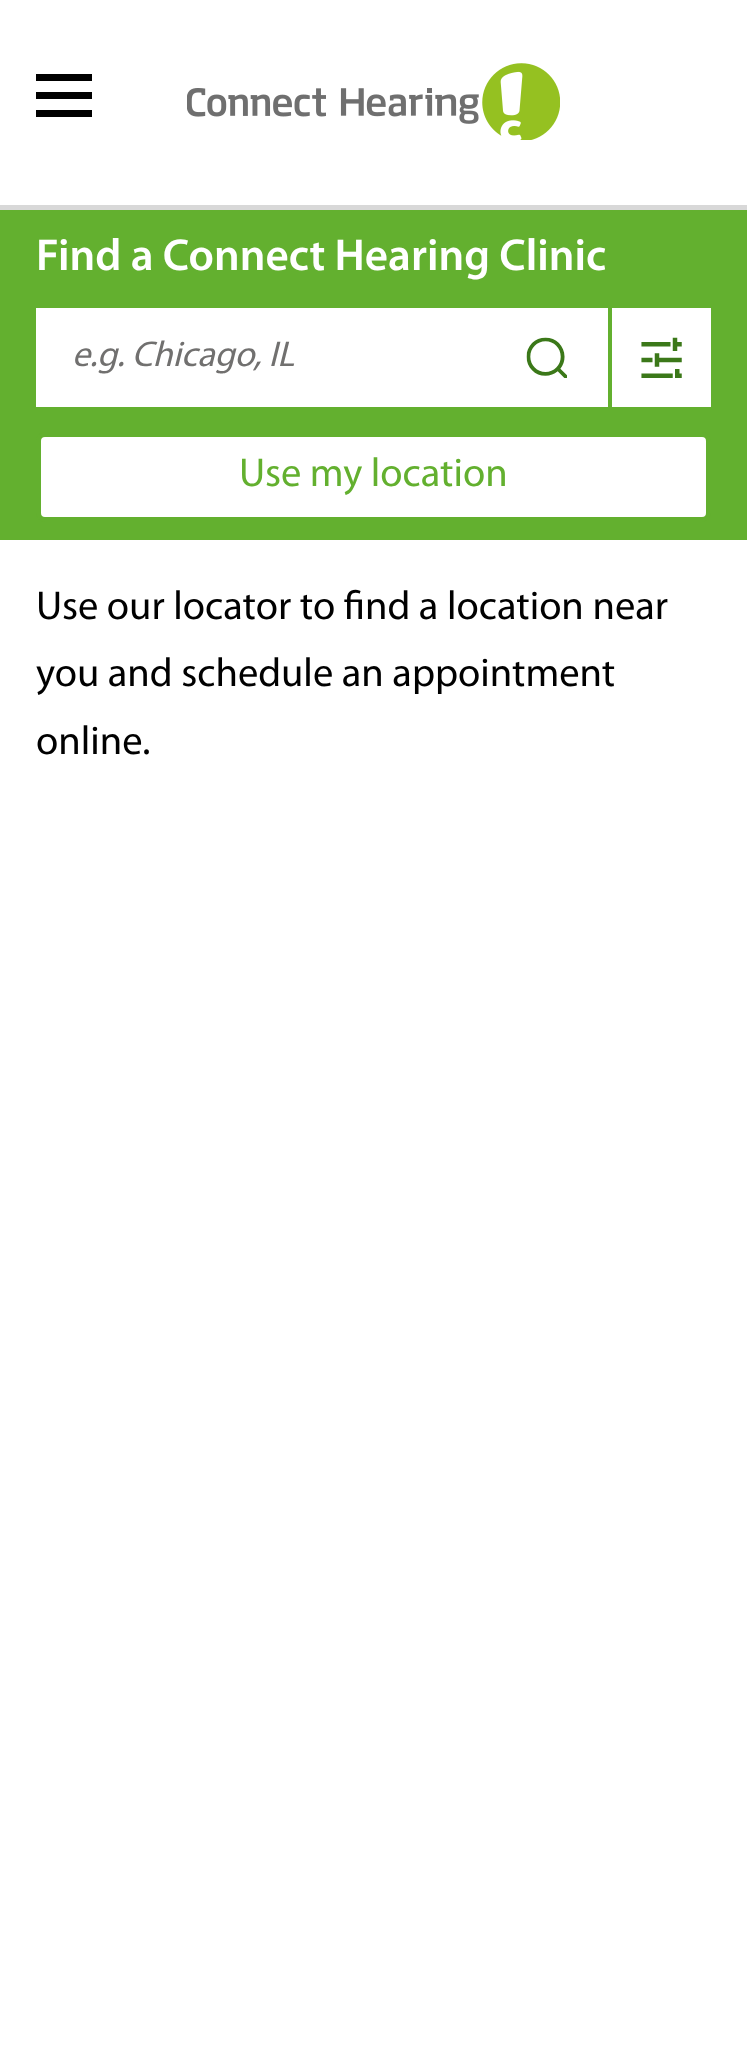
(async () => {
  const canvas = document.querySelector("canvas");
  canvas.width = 747;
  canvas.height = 2054;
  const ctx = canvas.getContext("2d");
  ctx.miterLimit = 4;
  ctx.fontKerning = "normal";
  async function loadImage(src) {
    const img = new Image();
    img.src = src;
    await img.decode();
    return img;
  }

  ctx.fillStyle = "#ffffff";
  ctx.fillRect(0, 0, 747, 2054);
  for (const [x, y, w, h, color] of [
    [0, 205, 747, 5, "#d8d8d8"],
    [36, 74, 56, 7, "#000000"],
    [36, 92, 56, 7, "#000000"],
    [36, 110, 56, 7, "#000000"],
  ]) {
    ctx.fillStyle = color;
    ctx.fillRect(x, y, w, h);
  }
  ctx.drawImage(await loadImage("img/1.png"), 187, 63, 373, 77);
  ctx.fillStyle = "#63b02f";
  ctx.fillRect(0, 210, 747, 330);
  ctx.fillStyle = "#ffffff";
  ctx.fillRect(36, 308, 572, 99);
  ctx.drawImage(await loadImage("img/2.png"), 526, 337, 41, 41);
  ctx.fillRect(612, 308, 99, 99);
  ctx.drawImage(await loadImage("img/3.png"), 641, 337, 41, 41);
  ctx.beginPath();
  ctx.roundRect(38.5, 434.5, 670, 85, 6.5);
  ctx.fill();
  ctx.strokeStyle = "#63b02f";
  ctx.lineWidth = 5;
  ctx.stroke();
  ctx.font = "600 45px Myriad";
  ctx.fillText("Find a Connect Hearing Clinic", 36, 270);
  ctx.font = "italic 36px Myriad";
  ctx.fillStyle = "#71706f";
  ctx.fillText("e.g. Chicago, IL", 72, 366);
  ctx.font = "40.5px Myriad";
  ctx.fillStyle = "#63b02f";
  ctx.fillText("Use my location", 239, 486);
  ctx.fillStyle = "#000000";
  for (const [text, x, y] of [
    ["Use our locator to find a location near", 36, 619],
    ["you and schedule an appointment", 36, 686],
    ["online.", 36, 754],
  ]) {
    ctx.fillText(text, x, y);
  }
})();
